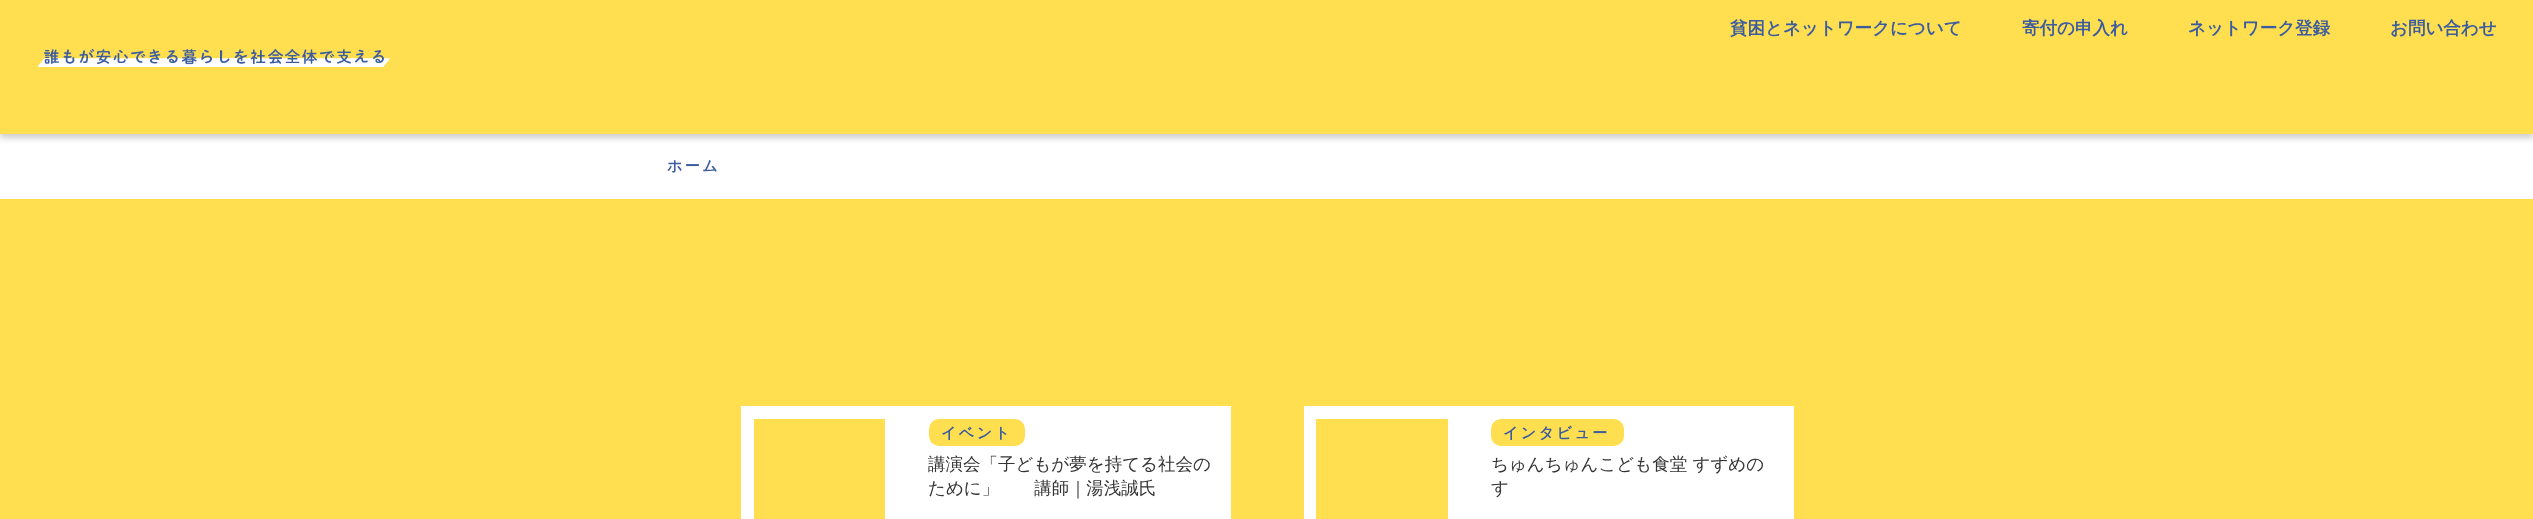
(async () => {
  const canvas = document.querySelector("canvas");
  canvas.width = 2533;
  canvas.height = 519;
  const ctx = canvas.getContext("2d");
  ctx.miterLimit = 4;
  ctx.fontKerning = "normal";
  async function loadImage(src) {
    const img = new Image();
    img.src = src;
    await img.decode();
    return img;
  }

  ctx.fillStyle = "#ffffff";
  ctx.fillRect(0, 0, 2533, 519);
  ctx.fillStyle = "rgba(0, 0, 0, 0.2)";
  ctx.filter = "blur(3px)";
  ctx.beginPath();
  ctx.rect(0, 4, 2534, 134);
  ctx.fill();
  ctx.filter = "none";
  ctx.fillStyle = "#ffde4f";
  ctx.fillRect(0, 0, 2533, 134);
  ctx.drawImage(await loadImage("img/1.png"), 38, 48, 352, 19);
  for (const [x, y, w, h, color] of [
    [0, 199, 2533, 320, "#ffde4f"],
    [741, 406, 490, 113, "#ffffff"],
    [754, 419, 131, 100, "#ffde4f"],
  ]) {
    ctx.fillStyle = color;
    ctx.fillRect(x, y, w, h);
  }
  ctx.beginPath();
  ctx.roundRect(929, 419, 96, 27, 10);
  ctx.fill();
  ctx.fillStyle = "#ffffff";
  ctx.fillRect(1304, 406, 490, 113);
  ctx.fillStyle = "#ffde4f";
  ctx.fillRect(1316, 419, 132, 100);
  ctx.beginPath();
  ctx.roundRect(1491, 419, 133, 27, 10);
  ctx.fill();
  ctx.font = "bold 17.5px WenQuanYi Zen Hei";
  ctx.fillStyle = "#3b5c9f";
  for (const [text, x, y] of [
    ["貧困とネットワークについて", 1730, 34],
    ["寄付の申入れ", 2022, 34],
    ["ネットワーク登録", 2188, 34],
    ["お問い合わせ", 2390, 34],
  ]) {
    ctx.fillText(text, x, y);
  }
  ctx.letterSpacing = "2.5px";
  ctx.font = "bold 15px WenQuanYi Zen Hei";
  ctx.fillText("ホーム", 667, 171);
  ctx.fillText("イベント", 941, 438);
  ctx.letterSpacing = "0px";
  ctx.font = "500 17.5px WenQuanYi Zen Hei";
  ctx.fillStyle = "#333333";
  ctx.fillText("講演会「子どもが夢を持てる社会の", 928, 470);
  ctx.fillText("ために」　　講師｜湯浅誠氏", 928, 494);
  ctx.letterSpacing = "2.5px";
  ctx.font = "bold 15px WenQuanYi Zen Hei";
  ctx.fillStyle = "#3b5c9f";
  ctx.fillText("インタビュー", 1503, 438);
  ctx.letterSpacing = "0px";
  ctx.font = "500 17.5px WenQuanYi Zen Hei";
  ctx.fillStyle = "#333333";
  ctx.fillText("ちゅんちゅんこども食堂 すずめの", 1491, 470);
  ctx.fillText("す", 1491, 494);
})();
